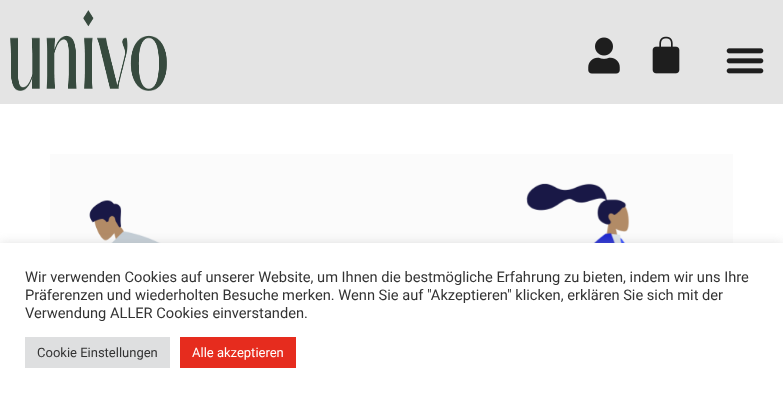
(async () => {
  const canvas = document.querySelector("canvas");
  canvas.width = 783;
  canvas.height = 398;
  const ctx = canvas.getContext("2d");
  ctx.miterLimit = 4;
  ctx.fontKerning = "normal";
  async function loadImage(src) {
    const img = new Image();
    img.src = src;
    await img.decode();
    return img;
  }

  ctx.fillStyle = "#e4e4e4";
  ctx.fillRect(0, 0, 783, 398);
  ctx.drawImage(await loadImage("img/1.png"), 10, 10, 157, 81);
  ctx.drawImage(await loadImage("img/2.png"), 588, 37, 32, 37);
  ctx.drawImage(await loadImage("img/3.png"), 652, 36, 28, 38);
  ctx.drawImage(await loadImage("img/4.png"), 726, 48, 38, 26);
  for (const [x, y, w, h, color] of [
    [50, 154, 683, 89, "#fbfbfb"],
    [50, 104, 683, 50, "#ffffff"],
    [733, 104, 50, 139, "#ffffff"],
    [0, 104, 50, 139, "#ffffff"],
  ]) {
    ctx.fillStyle = color;
    ctx.fillRect(x, y, w, h);
  }
  ctx.drawImage(await loadImage("img/5.png"), 89, 200, 72, 43);
  ctx.drawImage(await loadImage("img/6.png"), 526, 183, 104, 60);
  ctx.fillStyle = "rgba(172, 171, 171, 0.3)";
  ctx.filter = "blur(5px)";
  ctx.beginPath();
  ctx.rect(0, 242, 783, 155);
  ctx.fill();
  ctx.filter = "none";
  for (const [x, y, w, h, color] of [
    [0, 243, 783, 155, "#ffffff"],
    [25, 337, 145, 31, "#dedfe0"],
    [180, 337, 116, 31, "#e62c1e"],
  ]) {
    ctx.fillStyle = color;
    ctx.fillRect(x, y, w, h);
  }
  ctx.font = "14.65px Roboto";
  ctx.fillStyle = "#333333";
  for (const [text, x, y] of [
    ["Wir verwenden Cookies auf unserer Website, um Ihnen die bestmögliche Erfahrung zu bieten, indem wir uns Ihre", 25, 282],
    ["Präferenzen und wiederholten Besuche merken. Wenn Sie auf \"Akzeptieren\" klicken, erklären Sie sich mit der", 25, 300],
    ["Verwendung ALLER Cookies einverstanden.", 25, 318],
  ]) {
    ctx.fillText(text, x, y);
  }
  ctx.font = "13px Roboto";
  ctx.fillText("Cookie Einstellungen", 37, 357);
  ctx.fillStyle = "#ffffff";
  ctx.fillText("Alle akzeptieren", 192, 357);
})();
